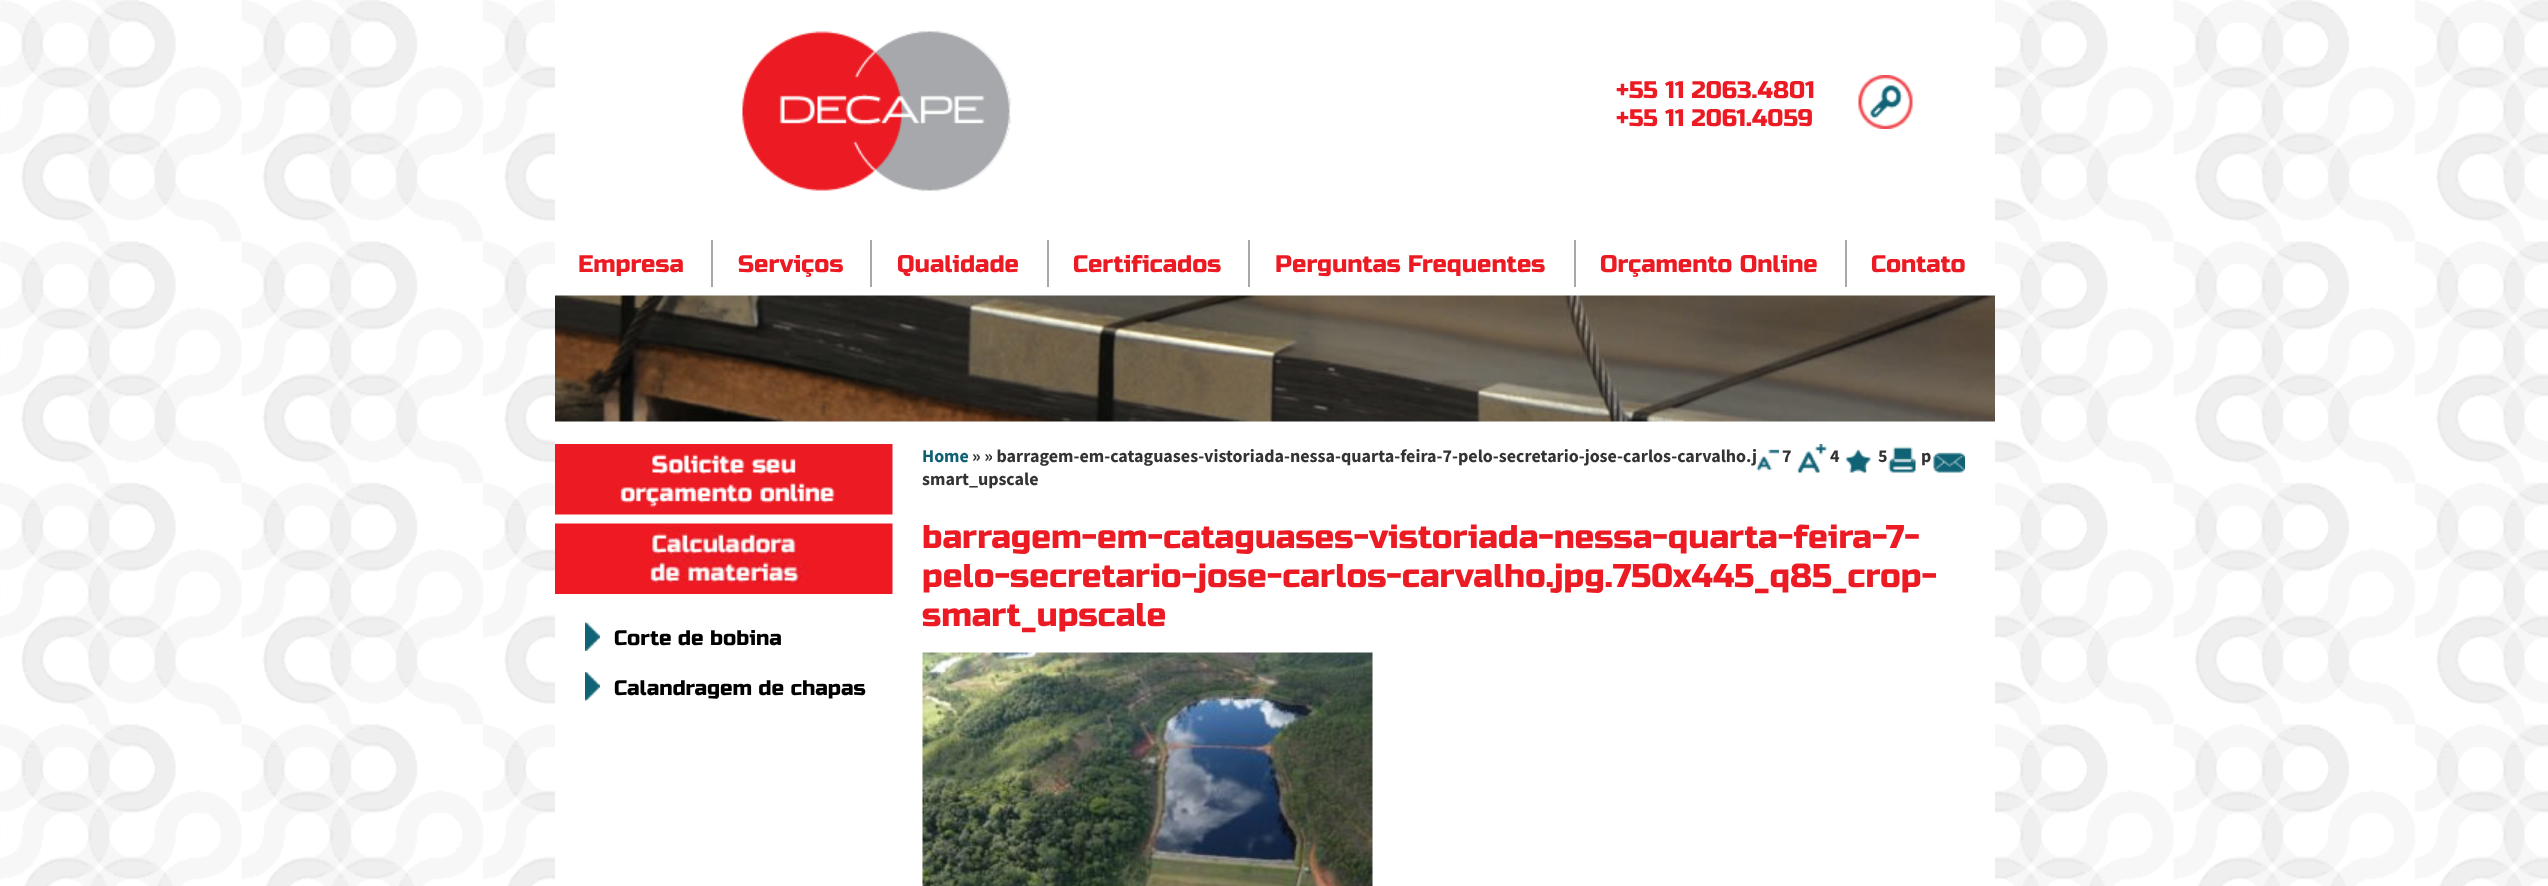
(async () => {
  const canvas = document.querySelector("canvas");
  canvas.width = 2548;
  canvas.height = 886;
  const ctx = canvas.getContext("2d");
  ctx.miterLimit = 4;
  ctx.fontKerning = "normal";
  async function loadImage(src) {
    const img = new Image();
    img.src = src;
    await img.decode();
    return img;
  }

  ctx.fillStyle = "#ffffff";
  ctx.fillRect(0, 0, 2548, 886);
  ctx.drawImage(await loadImage("img/1.png"), 0, 0, 2548, 886);
  ctx.fillRect(555, 0, 1440, 886);
  ctx.drawImage(await loadImage("img/2.png"), 742, 30, 269, 162);
  ctx.drawImage(await loadImage("img/3.png"), 1858, 75, 55, 54);
  for (const [x, y, w, h, color] of [
    [711, 240, 2, 47, "#a6a8ab"],
    [870, 240, 2, 47, "#a6a8ab"],
    [1047, 240, 2, 47, "#a6a8ab"],
    [1248, 240, 2, 47, "#a6a8ab"],
    [1574, 240, 2, 47, "#a6a8ab"],
    [1845, 240, 2, 47, "#a6a8ab"],
  ]) {
    ctx.fillStyle = color;
    ctx.fillRect(x, y, w, h);
  }
  ctx.drawImage(await loadImage("img/4.png"), 555, 295, 1440, 127);
  ctx.drawImage(await loadImage("img/6.png"), 1797, 444, 30, 29);
  ctx.drawImage(await loadImage("img/7.png"), 1845, 449, 26, 24);
  ctx.drawImage(await loadImage("img/8.png"), 1888, 446, 28, 27);
  ctx.drawImage(await loadImage("img/9.png"), 1933, 452, 32, 21);
  ctx.drawImage(await loadImage("img/10.png"), 922, 652, 451, 234);
  ctx.drawImage(await loadImage("img/11.png"), 555, 444, 338, 71);
  ctx.drawImage(await loadImage("img/12.png"), 555, 523, 338, 71);
  ctx.drawImage(await loadImage("img/13.png"), 585, 622, 15, 29);
  ctx.drawImage(await loadImage("img/14.png"), 585, 672, 15, 29);
  ctx.font = "24px Russo One";
  ctx.fillStyle = "#ec1b23";
  for (const [text, x, y] of [
    ["+55 11 2063.4801", 1616, 98],
    ["+55 11 2061.4059", 1616, 126],
    ["Empresa", 578, 272],
    ["Serviços", 738, 272],
    ["Qualidade", 897, 272],
    ["Certificados", 1073, 272],
    ["Perguntas Frequentes", 1275, 272],
    ["Orçamento Online", 1600, 272],
    ["Contato", 1871, 272],
  ]) {
    ctx.fillText(text, x, y);
  }
  ctx.font = "bold 18px Source Sans Pro";
  ctx.fillStyle = "#106073";
  ctx.fillText("Home", 922, 462);
  ctx.fillStyle = "#333333";
  ctx.fillText("» » barragem-em-cataguases-vistoriada-nessa-quarta-feira-7-pelo-secretario-jose-carlos-carvalho.j", 972, 462);
  ctx.drawImage(await loadImage("img/5.png"), 1756, 449, 23, 23);
  for (const [text, x, y] of [
    ["7", 1782, 462],
    ["4", 1830, 462],
    ["5", 1878, 462],
    ["p", 1921, 462],
    ["smart_upscale", 922, 485],
  ]) {
    ctx.fillText(text, x, y);
  }
  ctx.font = "33px Russo One";
  ctx.fillStyle = "#ec1b23";
  for (const [text, x, y] of [
    ["barragem-em-cataguases-vistoriada-nessa-quarta-feira-7-", 922, 548],
    ["pelo-secretario-jose-carlos-carvalho.jpg.750x445_q85_crop-", 922, 587],
    ["smart_upscale", 922, 626],
  ]) {
    ctx.fillText(text, x, y);
  }
  ctx.font = "21px Russo One";
  ctx.fillStyle = "#000000";
  ctx.fillText("Corte de bobina", 614, 645);
  ctx.fillText("Calandragem de chapas", 614, 695);
})();
